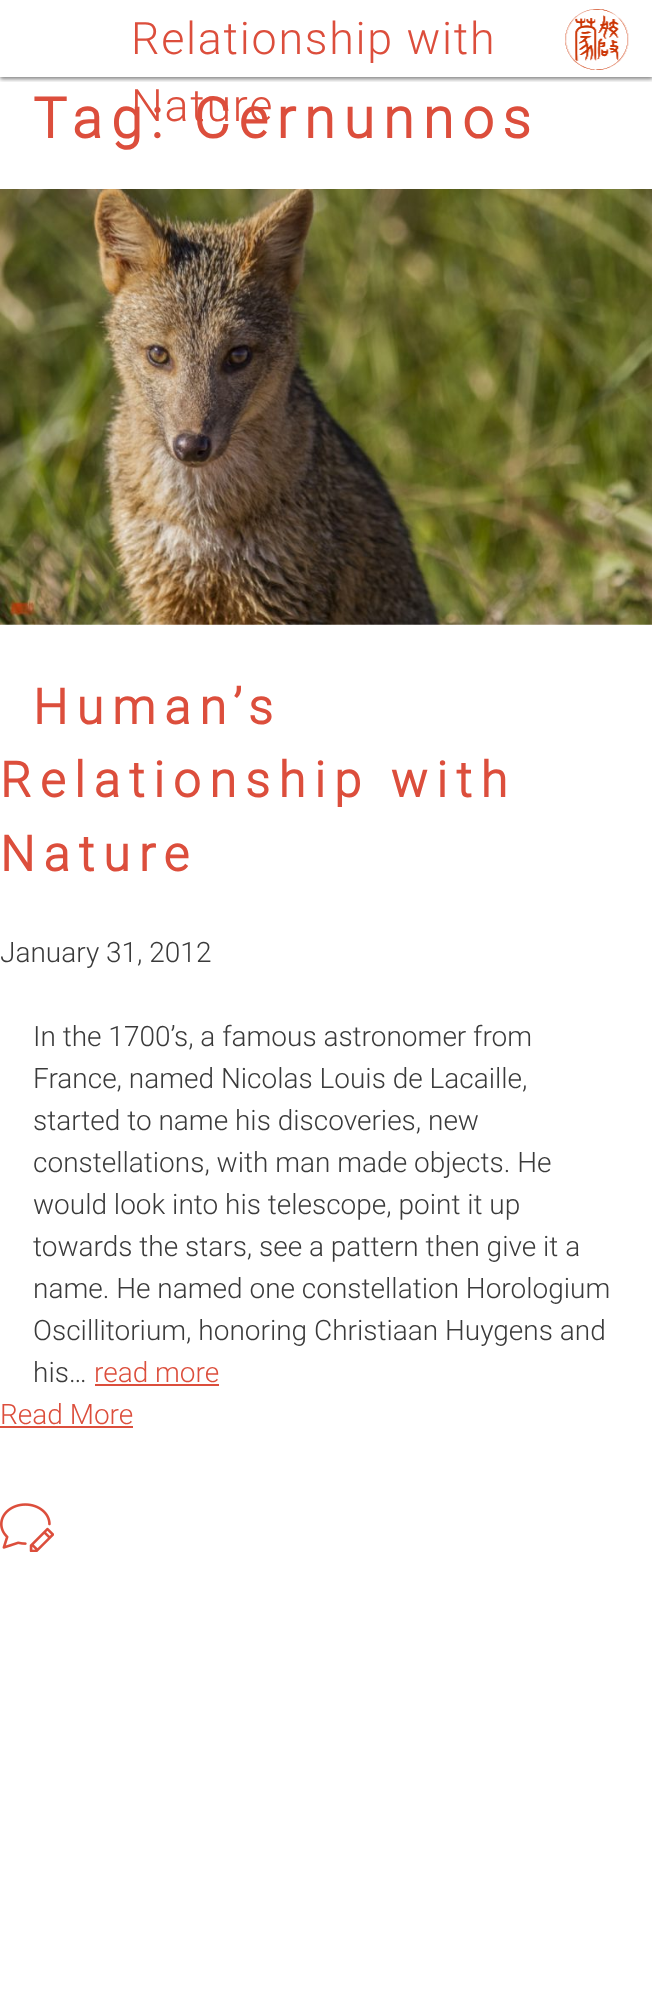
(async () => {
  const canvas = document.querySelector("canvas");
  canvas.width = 652;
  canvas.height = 2007;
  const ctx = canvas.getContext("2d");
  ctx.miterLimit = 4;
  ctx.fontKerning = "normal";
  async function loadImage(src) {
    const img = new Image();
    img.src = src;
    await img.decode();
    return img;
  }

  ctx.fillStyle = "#ffffff";
  ctx.fillRect(0, 0, 652, 2007);
  ctx.save();
  ctx.beginPath();
  ctx.rect(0, 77, 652, 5);
  ctx.clip();
  ctx.fillStyle = "rgba(0, 0, 0, 0.5)";
  ctx.filter = "blur(2px)";
  ctx.beginPath();
  ctx.rect(0, 2, 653, 77);
  ctx.fill();
  ctx.filter = "none";
  ctx.restore();
  ctx.drawImage(await loadImage("img/1.png"), 565, 9, 64, 61);
  ctx.drawImage(await loadImage("img/2.png"), 0, 189, 652, 436);
  ctx.fillStyle = "#dc4e3c";
  ctx.fillRect(95, 1384, 124, 2);
  ctx.fillRect(0, 1426, 133, 2);
  ctx.drawImage(await loadImage("img/3.png"), 0, 1503, 54, 49);
  ctx.letterSpacing = "1.75px";
  ctx.font = "300 44.75px Roboto";
  ctx.fillText("Relationship with", 131, 54);
  ctx.letterSpacing = "8.75px";
  ctx.font = "bold 56px Roboto";
  ctx.fillText("Tag: Cernunnos", 33, 138);
  ctx.letterSpacing = "1.75px";
  ctx.font = "300 44.75px Roboto";
  ctx.fillText("Nature", 131, 121);
  ctx.letterSpacing = "8.75px";
  ctx.font = "bold 49px Roboto";
  for (const [text, x, y] of [
    ["Human’s", 33, 724],
    ["Relationship with", 0, 797],
    ["Nature", 0, 871],
  ]) {
    ctx.fillText(text, x, y);
  }
  ctx.letterSpacing = "0px";
  ctx.font = "300 28px Roboto";
  ctx.fillStyle = "#3a3a3a";
  for (const [text, x, y] of [
    ["January 31, 2012", 0, 962],
    ["In the 1700’s, a famous astronomer from", 33, 1046],
    ["France, named Nicolas Louis de Lacaille,", 33, 1088],
    ["started to name his discoveries, new", 33, 1130],
    ["constellations, with man made objects. He", 33, 1172],
    ["would look into his telescope, point it up", 33, 1214],
    ["towards the stars, see a pattern then give it a", 33, 1256],
    ["name. He named one constellation Horologium", 33, 1298],
    ["Oscillitorium, honoring Christiaan Huygens and", 33, 1340],
    ["his…", 33, 1382],
  ]) {
    ctx.fillText(text, x, y);
  }
  ctx.fillStyle = "#dc4e3c";
  ctx.fillText("read more", 94, 1382);
  ctx.fillText("Read More", 0, 1424);
})();
